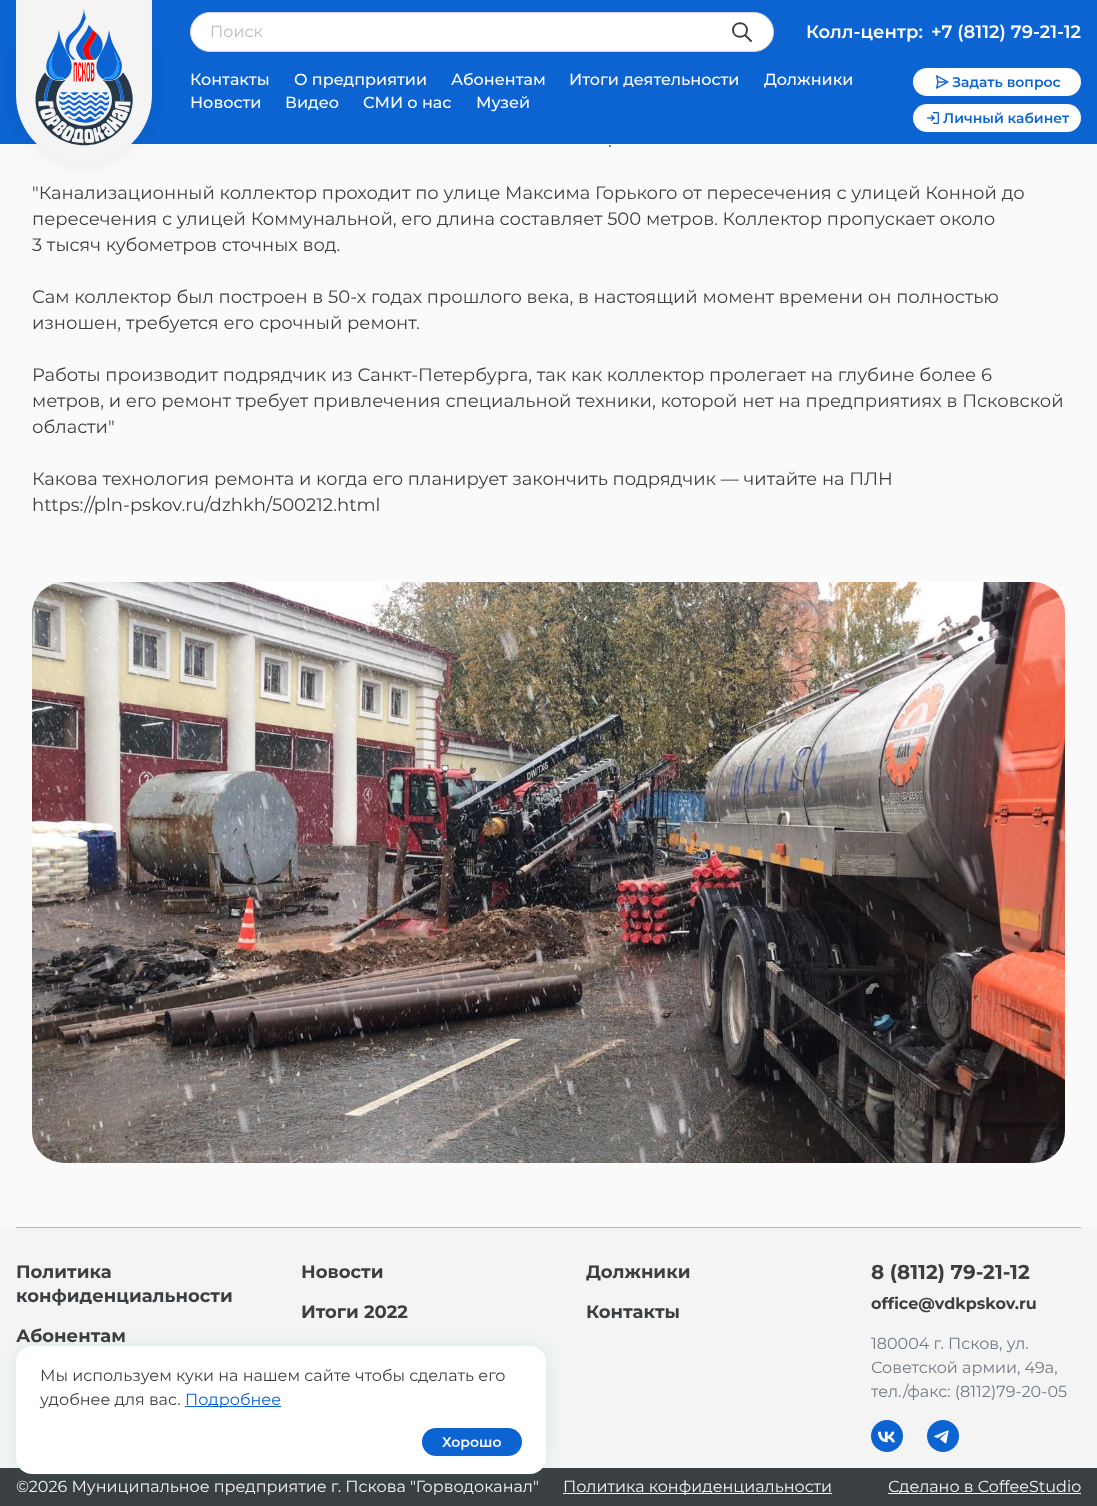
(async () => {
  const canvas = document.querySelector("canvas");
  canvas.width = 1097;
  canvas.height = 1506;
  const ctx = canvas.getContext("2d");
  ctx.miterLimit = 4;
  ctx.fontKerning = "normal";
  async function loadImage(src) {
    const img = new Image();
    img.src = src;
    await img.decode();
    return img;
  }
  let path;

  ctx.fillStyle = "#f4f4f4";
  ctx.fillRect(0, 0, 1097, 1506);
  ctx.fillStyle = "#0c64d2";
  ctx.fillRect(0, 0, 1097, 144);
  ctx.fillStyle = "#fafafa";
  ctx.fillRect(0, 144, 1097, 1083);
  ctx.fillStyle = "rgba(0, 0, 0, 0.05)";
  ctx.filter = "blur(7.5px)";
  ctx.beginPath();
  ctx.roundRect(16, 4, 136, 163, 68);
  ctx.fill();
  ctx.filter = "none";
  ctx.fillStyle = "#f4f4f4";
  ctx.beginPath();
  ctx.roundRect(16, 0, 136, 163, [0, 0, 68, 68]);
  ctx.fill();
  ctx.drawImage(await loadImage("img/1.png"), 35, 9, 98, 137);
  ctx.fillStyle = "#ffffff";
  ctx.beginPath();
  ctx.roundRect(190.5, 12.5, 583, 39, 19.5);
  ctx.fill();
  ctx.strokeStyle = "#d3d3d3";
  ctx.stroke();
  path = new Path2D("M745 35L751 41M747 30C747 39 733 39 733 30C733 21 747 21 747 30Z");
  ctx.strokeStyle = "#3c3f42";
  ctx.lineWidth = 2;
  ctx.lineCap = "round";
  ctx.lineJoin = "round";
  ctx.stroke(path);
  ctx.beginPath();
  ctx.roundRect(913, 68, 168, 28, 14);
  ctx.fill();
  ctx.drawImage(await loadImage("img/2.png"), 935, 75, 14, 14);
  ctx.beginPath();
  ctx.roundRect(913, 104, 168, 28, 14);
  ctx.fill();
  ctx.drawImage(await loadImage("img/3.png"), 927, 111, 13, 14);
  ctx.drawImage(await loadImage("img/4.png"), 32, 582, 1033, 581);
  ctx.fillStyle = "#bababa";
  ctx.fillRect(16, 1227, 1065, 1);
  ctx.fillStyle = "#0c64d2";
  ctx.beginPath();
  ctx.arc(887, 1436, 16, 0, Math.PI * 2);
  ctx.fill();
  ctx.drawImage(await loadImage("img/5.png"), 878, 1431, 18, 12);
  ctx.beginPath();
  ctx.arc(943, 1436, 16, 0, Math.PI * 2);
  ctx.fill();
  ctx.drawImage(await loadImage("img/6.png"), 934, 1430, 15, 14);
  for (const [x, y, w, h, color] of [
    [0, 1468, 1097, 38, "#3c3f42"],
    [563, 1493, 269, 1, "#f4f4f4"],
    [888, 1493, 193, 1, "#f4f4f4"],
  ]) {
    ctx.fillStyle = color;
    ctx.fillRect(x, y, w, h);
  }
  ctx.fillStyle = "rgba(28, 175, 143, 0.12)";
  ctx.filter = "blur(10px)";
  ctx.beginPath();
  ctx.roundRect(16, 1346, 530, 128, 16);
  ctx.fill();
  ctx.filter = "none";
  ctx.fillStyle = "#ffffff";
  ctx.beginPath();
  ctx.roundRect(16, 1346, 530, 128, 16);
  ctx.fill();
  ctx.fillStyle = "#0c64d2";
  ctx.fillRect(185, 1406, 96, 1);
  ctx.beginPath();
  ctx.roundRect(422, 1428, 100, 28, 14);
  ctx.fill();
  ctx.font = "16px Montserrat";
  ctx.fillStyle = "#bababa";
  ctx.fillText("Поиск", 210, 37);
  ctx.font = "600 18px Montserrat";
  ctx.fillStyle = "#fefefe";
  ctx.fillText("Колл-центр:", 806, 38);
  ctx.fillText("+7 (8112) 79-21-12", 931, 38);
  ctx.font = "500 16px Montserrat";
  for (const [text, x, y] of [
    ["Контакты", 190, 85],
    ["О предприятии", 294, 85],
    ["Абонентам", 451, 85],
    ["Итоги деятельности", 569, 85],
    ["Должники", 764, 85],
    ["Новости", 190, 108],
    ["Видео", 285, 108],
    ["СМИ о нас", 363, 108],
    ["Музей", 476, 108],
  ]) {
    ctx.fillText(text, x, y);
  }
  ctx.font = "600 14px Montserrat";
  ctx.fillStyle = "#0c64d2";
  ctx.fillText("Задать вопрос", 952, 87);
  ctx.fillText("Личный кабинет", 943, 123);
  ctx.font = "18px Montserrat";
  ctx.fillStyle = "#3c3f42";
  for (const [text, x, y] of [
    [".", 608, 147],
    ["\"Канализационный коллектор проходит по улице Максима Горького от пересечения с улицей Конной до", 32, 199],
    ["пересечения с улицей Коммунальной, его длина составляет 500 метров. Коллектор пропускает около", 32, 225],
    ["3 тысяч кубометров сточных вод.", 32, 251],
    ["Сам коллектор был построен в 50-х годах прошлого века, в настоящий момент времени он полностью", 32, 303],
    ["изношен, требуется его срочный ремонт.", 32, 329],
    ["Работы производит подрядчик из Санкт-Петербурга, так как коллектор пролегает на глубине более 6", 32, 381],
    ["метров, и его ремонт требует привлечения специальной техники, которой нет на предприятиях в Псковской", 32, 407],
    ["области\"", 32, 433],
    ["Какова технология ремонта и когда его планирует закончить подрядчик — читайте на ПЛН", 32, 485],
    ["https://pln-pskov.ru/dzhkh/500212.html", 32, 511],
  ]) {
    ctx.fillText(text, x, y);
  }
  ctx.font = "bold 18px Montserrat";
  for (const [text, x, y] of [
    ["Политика", 16, 1278],
    ["конфиденциальности", 16, 1302],
    ["Новости", 301, 1278],
    ["Должники", 586, 1278],
    ["Итоги 2022", 301, 1318],
    ["Контакты", 586, 1318],
    ["Абонентам", 16, 1342],
  ]) {
    ctx.fillText(text, x, y);
  }
  ctx.font = "bold 20px Montserrat";
  ctx.fillText("8 (8112) 79-21-12", 871, 1279);
  ctx.font = "bold 16px Montserrat";
  ctx.fillText("office@vdkpskov.ru", 871, 1309);
  ctx.font = "16px Montserrat";
  ctx.fillStyle = "#727a83";
  for (const [text, x, y] of [
    ["180004 г. Псков, ул.", 871, 1349],
    ["Советской армии, 49а,", 871, 1373],
    ["тел./факс: (8112)79-20-05", 871, 1397],
  ]) {
    ctx.fillText(text, x, y);
  }
  ctx.fillStyle = "#f4f4f4";
  for (const [text, x, y] of [
    ["©2026 Муниципальное предприятие г. Пскова \"Горводоканал\"", 16, 1492],
    ["Политика конфиденциальности", 563, 1492],
    ["Сделано в CoffeeStudio", 888, 1492],
  ]) {
    ctx.fillText(text, x, y);
  }
  ctx.fillStyle = "#3c3f42";
  ctx.fillText("Мы используем куки на нашем сайте чтобы сделать его", 40, 1381);
  ctx.fillText("удобнее для вас.", 40, 1405);
  ctx.fillStyle = "#0c64d2";
  ctx.fillText("Подробнее", 185, 1405);
  ctx.font = "600 14px Montserrat";
  ctx.fillStyle = "#f5f8fd";
  ctx.fillText("Хорошо", 442, 1447);
})();
